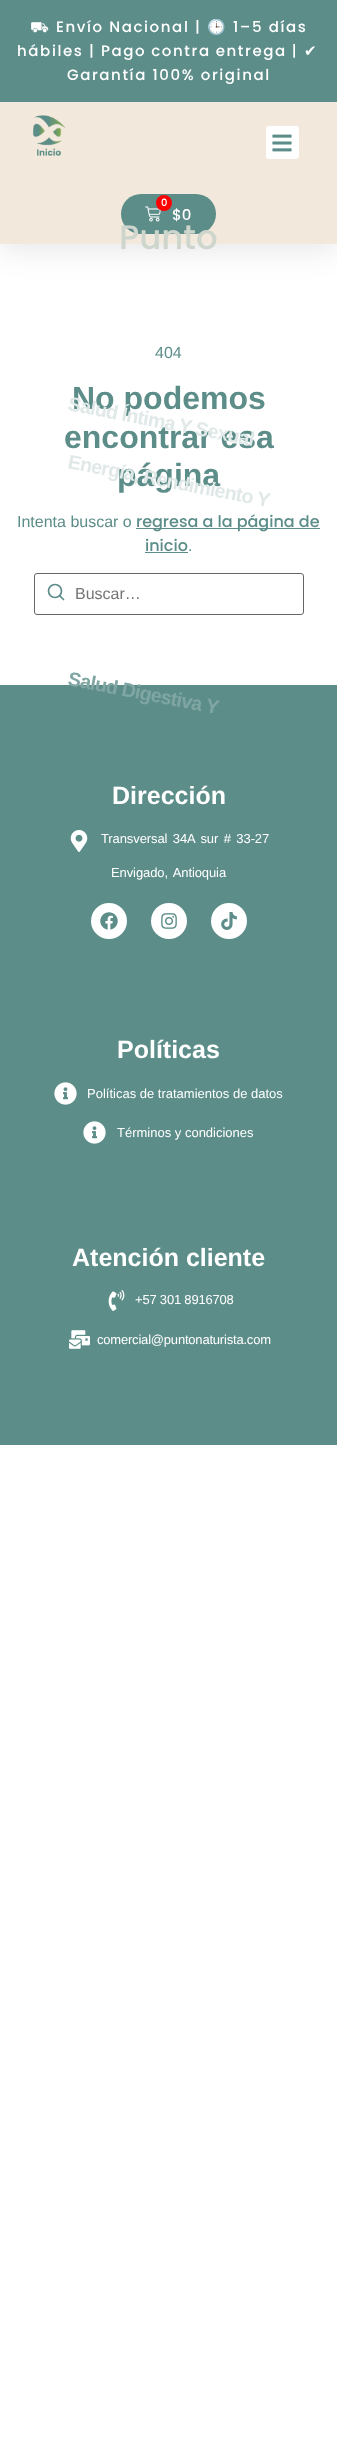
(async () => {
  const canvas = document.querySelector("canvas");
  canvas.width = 337;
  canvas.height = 2462;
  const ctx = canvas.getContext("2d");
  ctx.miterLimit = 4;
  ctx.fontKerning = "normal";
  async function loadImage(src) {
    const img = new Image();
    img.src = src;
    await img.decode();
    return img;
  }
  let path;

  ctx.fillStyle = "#ffffff";
  ctx.fillRect(0, 0, 337, 2462);
  ctx.fillStyle = "rgba(0, 0, 0, 0.1)";
  ctx.filter = "blur(15px)";
  ctx.beginPath();
  ctx.rect(0, 5, 337, 244);
  ctx.fill();
  ctx.filter = "none";
  ctx.fillStyle = "#5c8d89";
  ctx.fillRect(0, 0, 337, 102);
  ctx.fillStyle = "#f2e9dc";
  ctx.fillRect(0, 102, 337, 142);
  ctx.drawImage(await loadImage("img/1.png"), 32, 115, 34, 41);
  ctx.fillStyle = "#ffffff";
  ctx.beginPath();
  ctx.roundRect(266, 126, 33, 33, 3);
  ctx.fill();
  ctx.drawImage(await loadImage("img/2.png"), 272, 134, 20, 18);
  ctx.fillStyle = "#5c8d89";
  ctx.beginPath();
  ctx.roundRect(121, 194, 95, 40, 20);
  ctx.fill();
  ctx.drawImage(await loadImage("img/3.png"), 145, 206, 16, 16);
  ctx.fillStyle = "#ff0000";
  ctx.beginPath();
  ctx.arc(164, 203, 8, 0, Math.PI * 2);
  ctx.fill();
  ctx.fillStyle = "#5c8d89";
  ctx.fillRect(136, 528, 184, 1);
  ctx.fillRect(145, 552, 43, 1);
  ctx.beginPath();
  ctx.roundRect(34.5, 573.5, 269, 41, 2.5);
  ctx.strokeStyle = "#666666";
  ctx.stroke();
  ctx.beginPath();
  ctx.arc(55, 591, 6.5, 0, Math.PI * 2);
  ctx.strokeStyle = "#5c8d89";
  ctx.lineWidth = 1.7;
  ctx.stroke();
  path = new Path2D("M63.5 599.5L60 596");
  ctx.lineCap = "round";
  ctx.lineJoin = "round";
  ctx.stroke(path);
  ctx.fillRect(0, 685, 337, 760);
  ctx.drawImage(await loadImage("img/4.png"), 70, 830, 18, 22);
  ctx.fillStyle = "#ffffff";
  ctx.beginPath();
  ctx.arc(109, 921, 18, 0, Math.PI * 2);
  ctx.fill();
  ctx.drawImage(await loadImage("img/5.png"), 100, 912, 18, 18);
  ctx.beginPath();
  ctx.arc(169, 921, 18, 0, Math.PI * 2);
  ctx.fill();
  ctx.drawImage(await loadImage("img/6.png"), 161, 913, 16, 16);
  ctx.beginPath();
  ctx.arc(229, 921, 18, 0, Math.PI * 2);
  ctx.fill();
  ctx.drawImage(await loadImage("img/7.png"), 221, 912, 16, 18);
  ctx.drawImage(await loadImage("img/8.png"), 54, 1082, 23, 23);
  ctx.drawImage(await loadImage("img/8.png"), 83, 1121, 23, 23);
  ctx.drawImage(await loadImage("img/9.png"), 108, 1290, 17, 21);
  ctx.drawImage(await loadImage("img/10.png"), 69, 1330, 21, 19);
  ctx.letterSpacing = "1.6px";
  ctx.font = "15px STIX Two Math";
  ctx.fillText("⛟", 30, 32);
  ctx.font = "500 15px Poppins";
  ctx.fillText("Envío Nacional |", 56, 32);
  ctx.font = "15px Noto Color Emoji";
  ctx.fillText("🕒", 207, 32);
  ctx.font = "500 15px Poppins";
  ctx.fillText("1–5 días", 233, 32);
  ctx.fillText("hábiles |", 17, 56);
  ctx.wordSpacing = "-0.5px";
  ctx.fillText("Pago contra entrega |", 101, 56);
  ctx.wordSpacing = "0px";
  ctx.font = "15px DejaVu Sans";
  ctx.fillText("✔︎", 304, 56);
  ctx.font = "500 15px Poppins";
  ctx.fillText("Garantía 100% original", 67, 80);
  ctx.letterSpacing = "0px";
  ctx.font = "500 10px Poppins";
  ctx.fillText("0", 161, 206);
  ctx.font = "500 15px Poppins";
  ctx.fillText("$0", 172, 220);
  ctx.font = "500 34px Poppins";
  ctx.fillStyle = "#ced5cd";
  ctx.fillText("Punto", 119, 249);
  ctx.letterSpacing = "-0.75px";
  ctx.font = "bold 19.75px Liberation Sans";
  ctx.fillStyle = "#80a6a3";
  ctx.save();
  ctx.translate(67, 685);
  ctx.rotate(11 * Math.PI / 180);
  ctx.fillText("Salud Digestiva Y", 0, 0);
  ctx.restore();
  ctx.letterSpacing = "0px";
  ctx.font = "16px Liberation Sans";
  ctx.fillStyle = "#5c8d89";
  ctx.fillText("404", 155, 358);
  ctx.font = "bold 32px Liberation Sans";
  ctx.fillText("No podemos", 72, 409);
  ctx.fillText("encontrar esa", 64, 448);
  ctx.letterSpacing = "-0.75px";
  ctx.font = "bold 19.75px Liberation Sans";
  ctx.fillStyle = "#e0e9e8";
  ctx.save();
  ctx.translate(67, 410);
  ctx.rotate(11 * Math.PI / 180);
  ctx.fillText("Salud Íntima Y Sexual", 0, 0);
  ctx.restore();
  ctx.letterSpacing = "0px";
  ctx.font = "bold 32px Liberation Sans";
  ctx.fillStyle = "#5c8d89";
  ctx.fillText("página", 117, 486);
  ctx.letterSpacing = "-0.75px";
  ctx.font = "bold 19.75px Liberation Sans";
  ctx.fillStyle = "#e0e9e8";
  ctx.save();
  ctx.translate(67, 468);
  ctx.rotate(11 * Math.PI / 180);
  ctx.fillText("Energía, Rendimiento Y", 0, 0);
  ctx.restore();
  ctx.letterSpacing = "0px";
  ctx.font = "16px Liberation Sans";
  ctx.fillStyle = "#5c8d89";
  ctx.fillText("Intenta buscar o", 17, 527);
  ctx.font = "500 16px Poppins";
  ctx.fillText("regresa a la página de", 136, 527);
  ctx.fillText("inicio", 145, 551);
  ctx.font = "16px Liberation Sans";
  ctx.fillText(".", 188, 551);
  ctx.fillStyle = "#757575";
  ctx.fillText("Buscar…", 75, 599);
  ctx.font = "bold 25px Liberation Sans";
  ctx.fillStyle = "#ffffff";
  ctx.fillText("Dirección", 112, 804);
  ctx.letterSpacing = "-0.1px";
  ctx.wordSpacing = "2px";
  ctx.font = "13px Liberation Sans";
  ctx.fillText("Transversal 34A sur # 33-27", 101, 843);
  ctx.fillText("Envigado, Antioquia", 111, 877);
  ctx.letterSpacing = "0px";
  ctx.wordSpacing = "0px";
  ctx.font = "bold 25px Liberation Sans";
  ctx.fillText("Políticas", 117, 1058);
  ctx.font = "13px Liberation Sans";
  ctx.fillText("Políticas de tratamientos de datos", 87, 1098);
  ctx.fillText("Términos y condiciones", 117, 1137);
  ctx.font = "bold 25px Liberation Sans";
  ctx.fillText("Atención cliente", 72, 1266);
  ctx.letterSpacing = "-0.2px";
  ctx.font = "13px Liberation Sans";
  ctx.fillText("+57 301 8916708", 135, 1304);
  ctx.fillText("comercial@puntonaturista.com", 97, 1344);
})();
